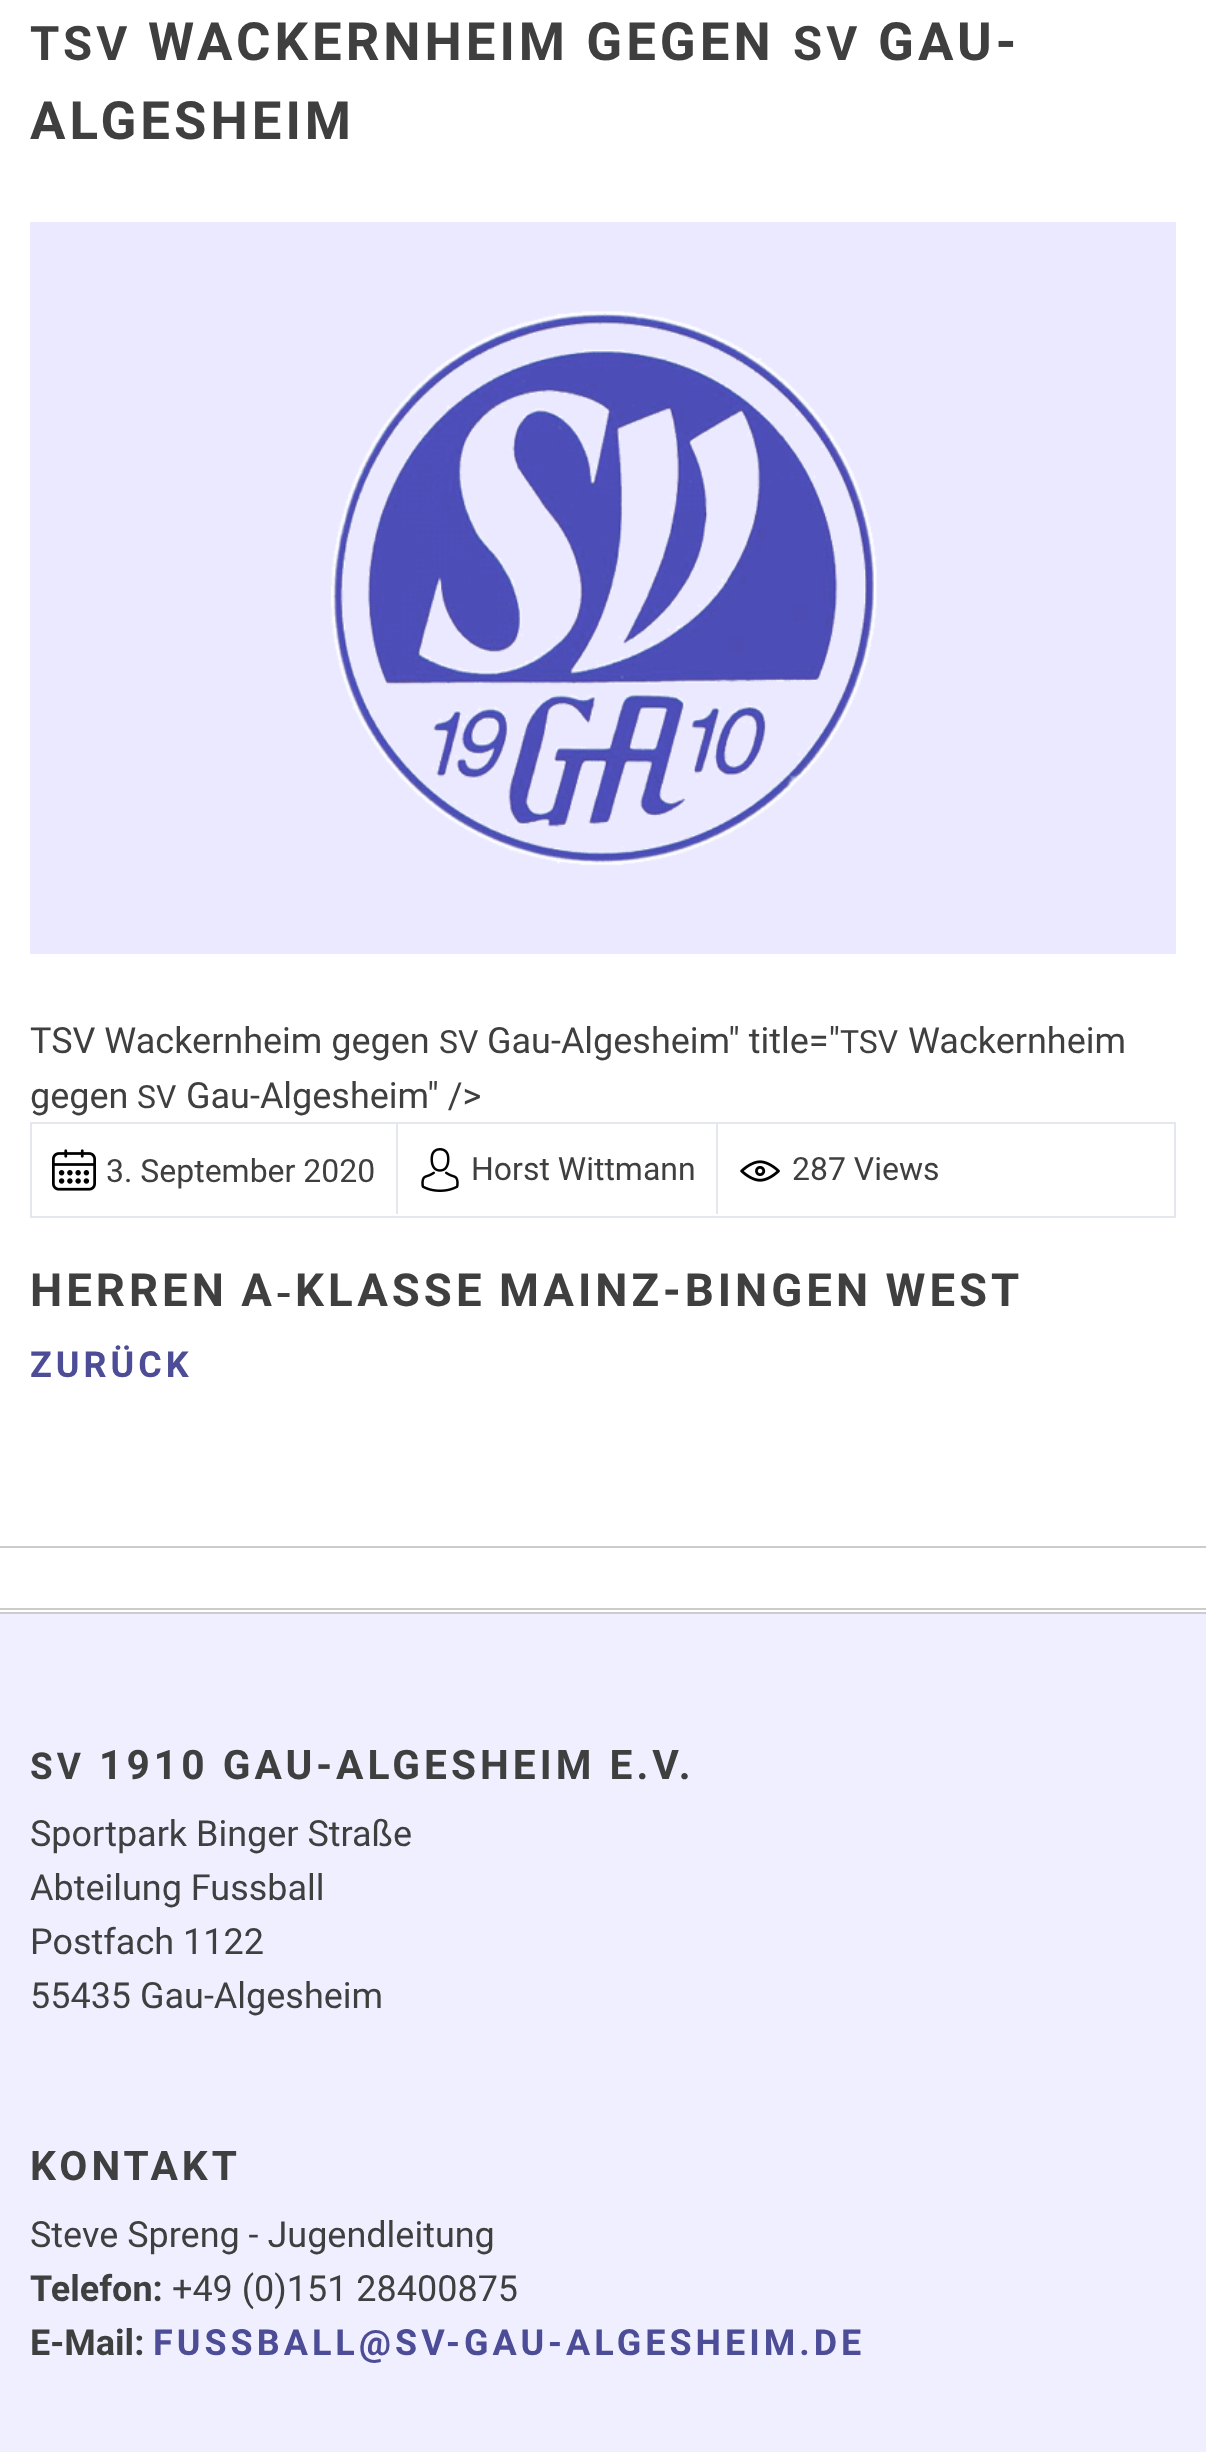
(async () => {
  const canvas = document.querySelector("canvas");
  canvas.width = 1206;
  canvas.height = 2452;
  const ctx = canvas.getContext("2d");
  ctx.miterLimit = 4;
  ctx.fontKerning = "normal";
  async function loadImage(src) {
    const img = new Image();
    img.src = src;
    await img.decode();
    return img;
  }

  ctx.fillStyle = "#ffffff";
  ctx.fillRect(0, 0, 1206, 2452);
  ctx.drawImage(await loadImage("img/1.png"), 30, 222, 1146, 732);
  for (const [x, y, w, h, color] of [
    [30, 1122, 1146, 2, "#e5e7ee"],
    [1174, 1122, 2, 96, "#e5e7ee"],
    [30, 1216, 1146, 2, "#e5e7ee"],
    [30, 1124, 2, 92, "#e5e7ee"],
  ]) {
    ctx.fillStyle = color;
    ctx.fillRect(x, y, w, h);
  }
  ctx.drawImage(await loadImage("img/2.png"), 52, 1149, 44, 42);
  ctx.fillRect(396, 1124, 2, 90);
  ctx.drawImage(await loadImage("img/3.png"), 421, 1148, 38, 44);
  ctx.fillRect(716, 1124, 2, 90);
  ctx.drawImage(await loadImage("img/4.png"), 740, 1160, 40, 22);
  for (const [x, y, w, h, color] of [
    [0, 1546, 1206, 2, "#cccccc"],
    [0, 1608, 1206, 2, "#cccccc"],
    [0, 1614, 1206, 838, "#f0efff"],
    [0, 1612, 1206, 2, "#cccccc"],
  ]) {
    ctx.fillStyle = color;
    ctx.fillRect(x, y, w, h);
  }
  ctx.letterSpacing = "4px";
  ctx.font = "bold 47.5px Roboto";
  ctx.fillStyle = "#3f3f3f";
  ctx.fillText("TSV", 30, 60);
  ctx.font = "bold 52.75px Roboto";
  ctx.fillText("WACKERNHEIM GEGEN", 148, 60);
  ctx.font = "bold 47.5px Roboto";
  ctx.fillText("SV", 793, 60);
  ctx.font = "bold 52.75px Roboto";
  ctx.fillText("GAU-", 878, 60);
  ctx.fillText("ALGESHEIM", 30, 139);
  ctx.letterSpacing = "0px";
  ctx.font = "36px Roboto";
  ctx.fillText("TSV Wackernheim gegen", 30, 1053);
  ctx.font = "32px Roboto";
  ctx.fillText("SV", 439, 1053);
  ctx.font = "36px Roboto";
  ctx.fillText("Gau-Algesheim\" title=\"", 487, 1053);
  ctx.font = "32px Roboto";
  ctx.fillText("TSV", 840, 1053);
  ctx.font = "36px Roboto";
  ctx.fillText("Wackernheim", 908, 1053);
  ctx.fillText("gegen", 30, 1108);
  ctx.font = "32px Roboto";
  ctx.fillText("SV", 137, 1108);
  ctx.font = "36px Roboto";
  ctx.fillText("Gau-Algesheim\" />", 186, 1108);
  ctx.font = "32px Roboto";
  for (const [text, x, y] of [
    ["3. September 2020", 106, 1182],
    ["Horst Wittmann", 471, 1180],
    ["287 Views", 792, 1180],
  ]) {
    ctx.fillText(text, x, y);
  }
  ctx.letterSpacing = "4px";
  ctx.wordSpacing = "-2px";
  ctx.font = "bold 45.6px Roboto";
  ctx.fillText("HERREN A‑KLASSE MAINZ-BINGEN WEST", 30, 1306);
  ctx.wordSpacing = "0px";
  ctx.font = "bold 36px Roboto";
  ctx.fillStyle = "#4d4d97";
  ctx.fillText("ZURÜCK", 30, 1377);
  ctx.font = "bold 37px Roboto";
  ctx.fillStyle = "#3f3f3f";
  ctx.fillText("SV", 30, 1779);
  ctx.font = "bold 40.75px Roboto";
  ctx.fillText("1910 GAU-ALGESHEIM E.V.", 99, 1779);
  ctx.letterSpacing = "0px";
  ctx.font = "36px Roboto";
  for (const [text, x, y] of [
    ["Sportpark Binger Straße", 30, 1846],
    ["Abteilung Fussball", 30, 1900],
    ["Postfach 1122", 30, 1954],
    ["55435 Gau-Algesheim", 30, 2008],
  ]) {
    ctx.fillText(text, x, y);
  }
  ctx.letterSpacing = "4px";
  ctx.font = "bold 40.75px Roboto";
  ctx.fillText("KONTAKT", 30, 2180);
  ctx.letterSpacing = "0px";
  ctx.font = "36px Roboto";
  ctx.fillText("Steve Spreng - Jugendleitung", 30, 2247);
  ctx.font = "bold 36px Roboto";
  ctx.fillText("Telefon:", 30, 2301);
  ctx.font = "36px Roboto";
  ctx.fillText("+49 (0)151 28400875", 172, 2301);
  ctx.font = "bold 36px Roboto";
  ctx.fillText("E-Mail:", 30, 2355);
  ctx.letterSpacing = "4px";
  ctx.fillStyle = "#4d4d97";
  ctx.fillText("FUSSBALL@SV-GAU-ALGESHEIM.DE", 153, 2355);
})();
